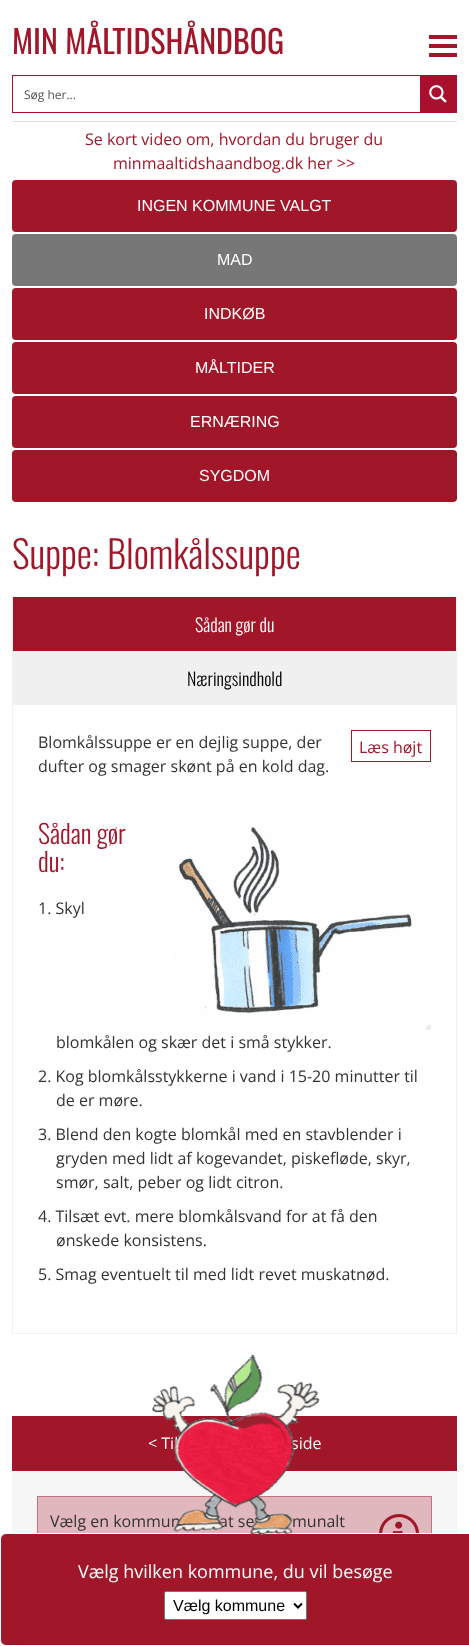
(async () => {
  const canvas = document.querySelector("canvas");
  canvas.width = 469;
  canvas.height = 1646;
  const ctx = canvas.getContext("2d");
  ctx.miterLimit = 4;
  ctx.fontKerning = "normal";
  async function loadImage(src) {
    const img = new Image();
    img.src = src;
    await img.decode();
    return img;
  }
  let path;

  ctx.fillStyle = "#ffffff";
  ctx.fillRect(0, 0, 469, 1646);
  ctx.fillStyle = "#dedede";
  ctx.fillRect(12, 121, 445, 1);
  ctx.drawImage(await loadImage("img/1.png"), 429, 35, 28, 22);
  ctx.strokeStyle = "#a9102e";
  ctx.strokeRect(12.5, 75.5, 444, 37);
  ctx.fillStyle = "#a9102e";
  ctx.fillRect(420, 76, 36, 36);
  ctx.drawImage(await loadImage("img/2.png"), 429, 85, 18, 18);
  ctx.fillStyle = "#a21629";
  ctx.beginPath();
  ctx.roundRect(12, 180, 445, 52, 4);
  ctx.fill();
  ctx.fillStyle = "#777777";
  ctx.beginPath();
  ctx.roundRect(12, 234, 445, 52, 4);
  ctx.fill();
  ctx.fillStyle = "#a21629";
  ctx.beginPath();
  ctx.roundRect(12, 288, 445, 52, 4);
  ctx.fill();
  ctx.beginPath();
  ctx.roundRect(12, 342, 445, 52, 4);
  ctx.fill();
  ctx.beginPath();
  ctx.roundRect(12, 396, 445, 52, 4);
  ctx.fill();
  ctx.beginPath();
  ctx.roundRect(12, 450, 445, 52, 4);
  ctx.fill();
  for (const [x, y, w, h, color] of [
    [13, 597, 443, 54, "#a21629"],
    [13, 651, 443, 54, "#f0f0f0"],
    [456, 597, 1, 737, "#f0f0f0"],
    [12, 1333, 445, 1, "#f0f0f0"],
    [12, 597, 1, 737, "#f0f0f0"],
  ]) {
    ctx.fillStyle = color;
    ctx.fillRect(x, y, w, h);
  }
  ctx.drawImage(await loadImage("img/3.png"), 175, 827, 256, 203);
  ctx.strokeStyle = "#a21629";
  ctx.strokeRect(351.5, 730.5, 79, 31);
  for (const [x, y, w, h, color] of [
    [12, 1471, 445, 62, "#f6f6f6"],
    [12, 1416, 445, 55, "#a21629"],
    [38, 1497, 393, 36, "#dfb7bc"],
  ]) {
    ctx.fillStyle = color;
    ctx.fillRect(x, y, w, h);
  }
  ctx.strokeStyle = "#c3737e";
  ctx.strokeRect(37.5, 1496.5, 394, 110);
  ctx.drawImage(await loadImage("img/4.png"), 379, 1514, 40, 19);
  ctx.fillStyle = "#a21629";
  path = new Path2D("M6 1533.5H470.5V1645.5H6C3 1645.5 .5 1643 .5 1640V1539C.5 1536 3 1533.5 6 1533.5Z");
  ctx.fill(path);
  ctx.strokeStyle = "#ffffff";
  ctx.stroke(path);
  ctx.fillStyle = "#ffffff";
  ctx.beginPath();
  ctx.roundRect(164.5, 1591.5, 142, 28, 1.5);
  ctx.fill();
  ctx.strokeStyle = "#767676";
  ctx.stroke();
  path = new Path2D("M294 1603.5L298 1607.5L302 1603.5");
  ctx.strokeStyle = "#000000";
  ctx.lineWidth = 2;
  ctx.stroke(path);
  ctx.font = "32px Oswald";
  ctx.fillStyle = "#a21629";
  ctx.fillText("MIN MÅLTIDSHÅNDBOG", 12, 54);
  ctx.font = "12px Open Sans";
  ctx.fillStyle = "#525252";
  ctx.fillText("Søg her...", 24, 99);
  ctx.font = "16px Open Sans";
  ctx.fillStyle = "#a21629";
  ctx.fillText("Se kort video om, hvordan du bruger du", 85, 145);
  ctx.fillText("minmaaltidshaandbog.dk her >>", 113, 169);
  ctx.font = "16px Liberation Sans";
  ctx.fillStyle = "#ffffff";
  for (const [text, x, y] of [
    ["INGEN KOMMUNE VALGT", 137, 211],
    ["MAD", 217, 265],
    ["INDKØB", 204, 319],
    ["MÅLTIDER", 195, 373],
    ["ERNÆRING", 190, 427],
    ["SYGDOM", 199, 481],
  ]) {
    ctx.fillText(text, x, y);
  }
  ctx.font = "300 38px Oswald";
  ctx.fillStyle = "#a21629";
  ctx.fillText("Suppe: Blomkålssuppe", 12, 569);
  ctx.font = "300 18px Oswald";
  ctx.fillStyle = "#ffffff";
  ctx.fillText("Sådan gør du", 195, 632);
  ctx.fillStyle = "#000000";
  ctx.fillText("Næringsindhold", 187, 686);
  ctx.font = "16px Open Sans";
  ctx.fillStyle = "#333333";
  ctx.fillText("Blomkålssuppe er en dejlig suppe, der", 38, 748);
  ctx.fillText("dufter og smager skønt på en kold dag.", 38, 772);
  ctx.font = "300 26px Oswald";
  ctx.fillStyle = "#a21629";
  ctx.fillText("Sådan gør", 38, 844);
  ctx.fillText("du:", 38, 872);
  ctx.font = "16px Open Sans";
  ctx.fillStyle = "#333333";
  for (const [text, x, y] of [
    ["1. Skyl", 38, 914],
    ["blomkålen og skær det i små stykker.", 56, 1048],
    ["2. Kog blomkålsstykkerne i vand i 15-20 minutter til", 38, 1082],
    ["de er møre.", 56, 1106],
    ["3. Blend den kogte blomkål med en stavblender i", 38, 1140],
    ["gryden med lidt af kogevandet, piskefløde, skyr,", 56, 1164],
    ["smør, salt, peber og lidt citron.", 56, 1188],
    ["4. Tilsæt evt. mere blomkålsvand for at få den", 38, 1222],
    ["ønskede konsistens.", 56, 1246],
    ["5. Smag eventuelt til med lidt revet muskatnød.", 38, 1280],
  ]) {
    ctx.fillText(text, x, y);
  }
  ctx.fillStyle = "#a21629";
  ctx.fillText("Læs højt", 359, 753);
  ctx.fillStyle = "#ffffff";
  ctx.fillText("< Til", 148, 1449);
  ctx.fillText("side", 291, 1449);
  ctx.fillStyle = "#333333";
  for (const [text, x, y] of [
    ["Vælg en kommun", 50, 1527],
    ["at se", 219, 1527],
    ["munalt", 292, 1527],
  ]) {
    ctx.fillText(text, x, y);
  }
  ctx.drawImage(await loadImage("img/5.png"), 152, 1354, 168, 181);
  ctx.font = "18px Open Sans";
  ctx.fillStyle = "#ffffff";
  ctx.fillText("Vælg hvilken kommune, du vil besøge", 78, 1578);
  ctx.font = "16px Liberation Sans";
  ctx.fillStyle = "#000000";
  ctx.fillText("Vælg kommune", 173, 1611);
})();
